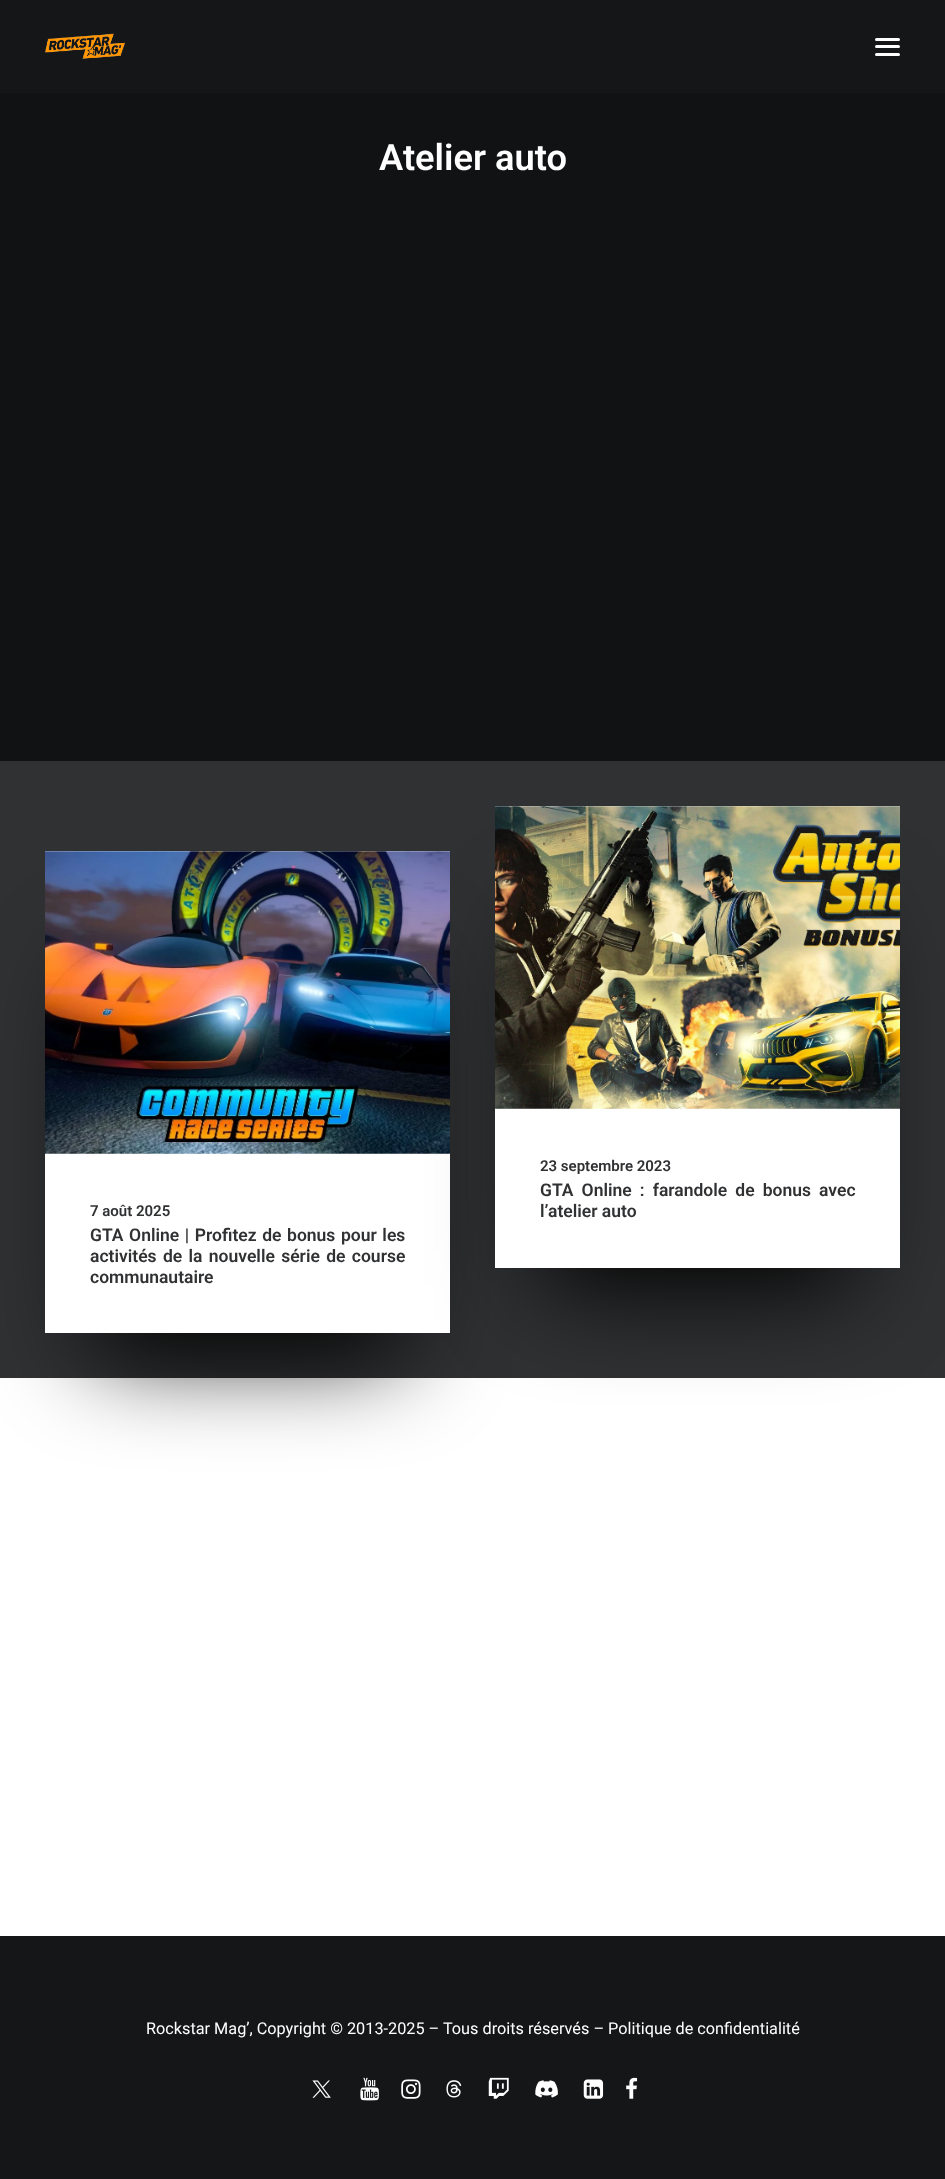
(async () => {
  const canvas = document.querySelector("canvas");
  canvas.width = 945;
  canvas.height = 2179;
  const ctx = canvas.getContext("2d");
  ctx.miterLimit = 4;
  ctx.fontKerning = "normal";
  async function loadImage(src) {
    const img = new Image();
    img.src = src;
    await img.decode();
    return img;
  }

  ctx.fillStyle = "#101213";
  ctx.fillRect(0, 0, 945, 2179);
  ctx.fillStyle = "#141618";
  ctx.fillRect(0, 0, 945, 93);
  ctx.drawImage(await loadImage("img/1.png"), 45, 33, 80, 26);
  ctx.fillStyle = "#ffffff";
  ctx.beginPath();
  ctx.roundRect(875, 45, 25, 3, 1.5);
  ctx.fill();
  ctx.beginPath();
  ctx.roundRect(875, 38, 25, 3, 1.5);
  ctx.fill();
  ctx.beginPath();
  ctx.roundRect(875, 53, 25, 3, 1.5);
  ctx.fill();
  ctx.fillRect(0, 1378, 945, 558);
  ctx.fillStyle = "#303133";
  ctx.fillRect(0, 761, 945, 617);
  ctx.fillStyle = "#000000";
  ctx.filter = "blur(50px)";
  ctx.beginPath();
  ctx.rect(95, 970, 305, 381);
  ctx.fill();
  ctx.filter = "none";
  ctx.fillStyle = "#ffffff";
  ctx.fillRect(45, 851, 405, 482);
  ctx.fillStyle = "#000000";
  ctx.filter = "blur(50px)";
  ctx.beginPath();
  ctx.rect(545, 925, 305, 361);
  ctx.fill();
  ctx.filter = "none";
  ctx.fillStyle = "#ffffff";
  ctx.fillRect(495, 806, 405, 462);
  ctx.drawImage(await loadImage("img/2.png"), 495, 806, 405, 303);
  ctx.drawImage(await loadImage("img/3.png"), 45, 851, 405, 303);
  ctx.fillStyle = "#141618";
  ctx.fillRect(0, 1936, 945, 243);
  ctx.drawImage(await loadImage("img/4.png"), 312, 2080, 19, 18);
  ctx.drawImage(await loadImage("img/5.png"), 360, 2077, 19, 24);
  ctx.drawImage(await loadImage("img/6.png"), 401, 2079, 20, 20);
  ctx.drawImage(await loadImage("img/7.png"), 446, 2080, 16, 18);
  ctx.drawImage(await loadImage("img/8.png"), 488, 2077, 21, 22);
  ctx.drawImage(await loadImage("img/9.png"), 535, 2080, 23, 18);
  ctx.drawImage(await loadImage("img/10.png"), 583, 2079, 21, 20);
  ctx.drawImage(await loadImage("img/11.png"), 626, 2077, 12, 22);
  ctx.font = "600 36.25px Roboto";
  ctx.fillStyle = "#ffffff";
  ctx.fillText("Atelier auto", 379, 170);
  ctx.font = "600 15px Roboto";
  ctx.fillStyle = "#303133";
  ctx.fillText("23 septembre 2023", 540, 1171);
  ctx.wordSpacing = "3.75px";
  ctx.font = "600 17.5px Roboto";
  ctx.fillText("GTA Online : farandole de bonus avec", 540, 1196);
  ctx.wordSpacing = "0px";
  ctx.fillText("l’atelier auto", 540, 1217);
  ctx.font = "600 15px Roboto";
  ctx.fillText("7 août 2025", 90, 1216);
  ctx.wordSpacing = "1.25px";
  ctx.font = "600 17.5px Roboto";
  ctx.fillText("GTA Online | Profitez de bonus pour les", 90, 1241);
  ctx.wordSpacing = "2px";
  ctx.fillText("activités de la nouvelle série de course", 90, 1262);
  ctx.wordSpacing = "0px";
  ctx.fillText("communautaire", 90, 1283);
  ctx.font = "16.25px Roboto";
  ctx.fillStyle = "#ffffff";
  ctx.fillText("Rockstar Mag’, Copyright © 2013-2025 – Tous droits réservés – Politique de confidentialité", 146, 2034);
})();
